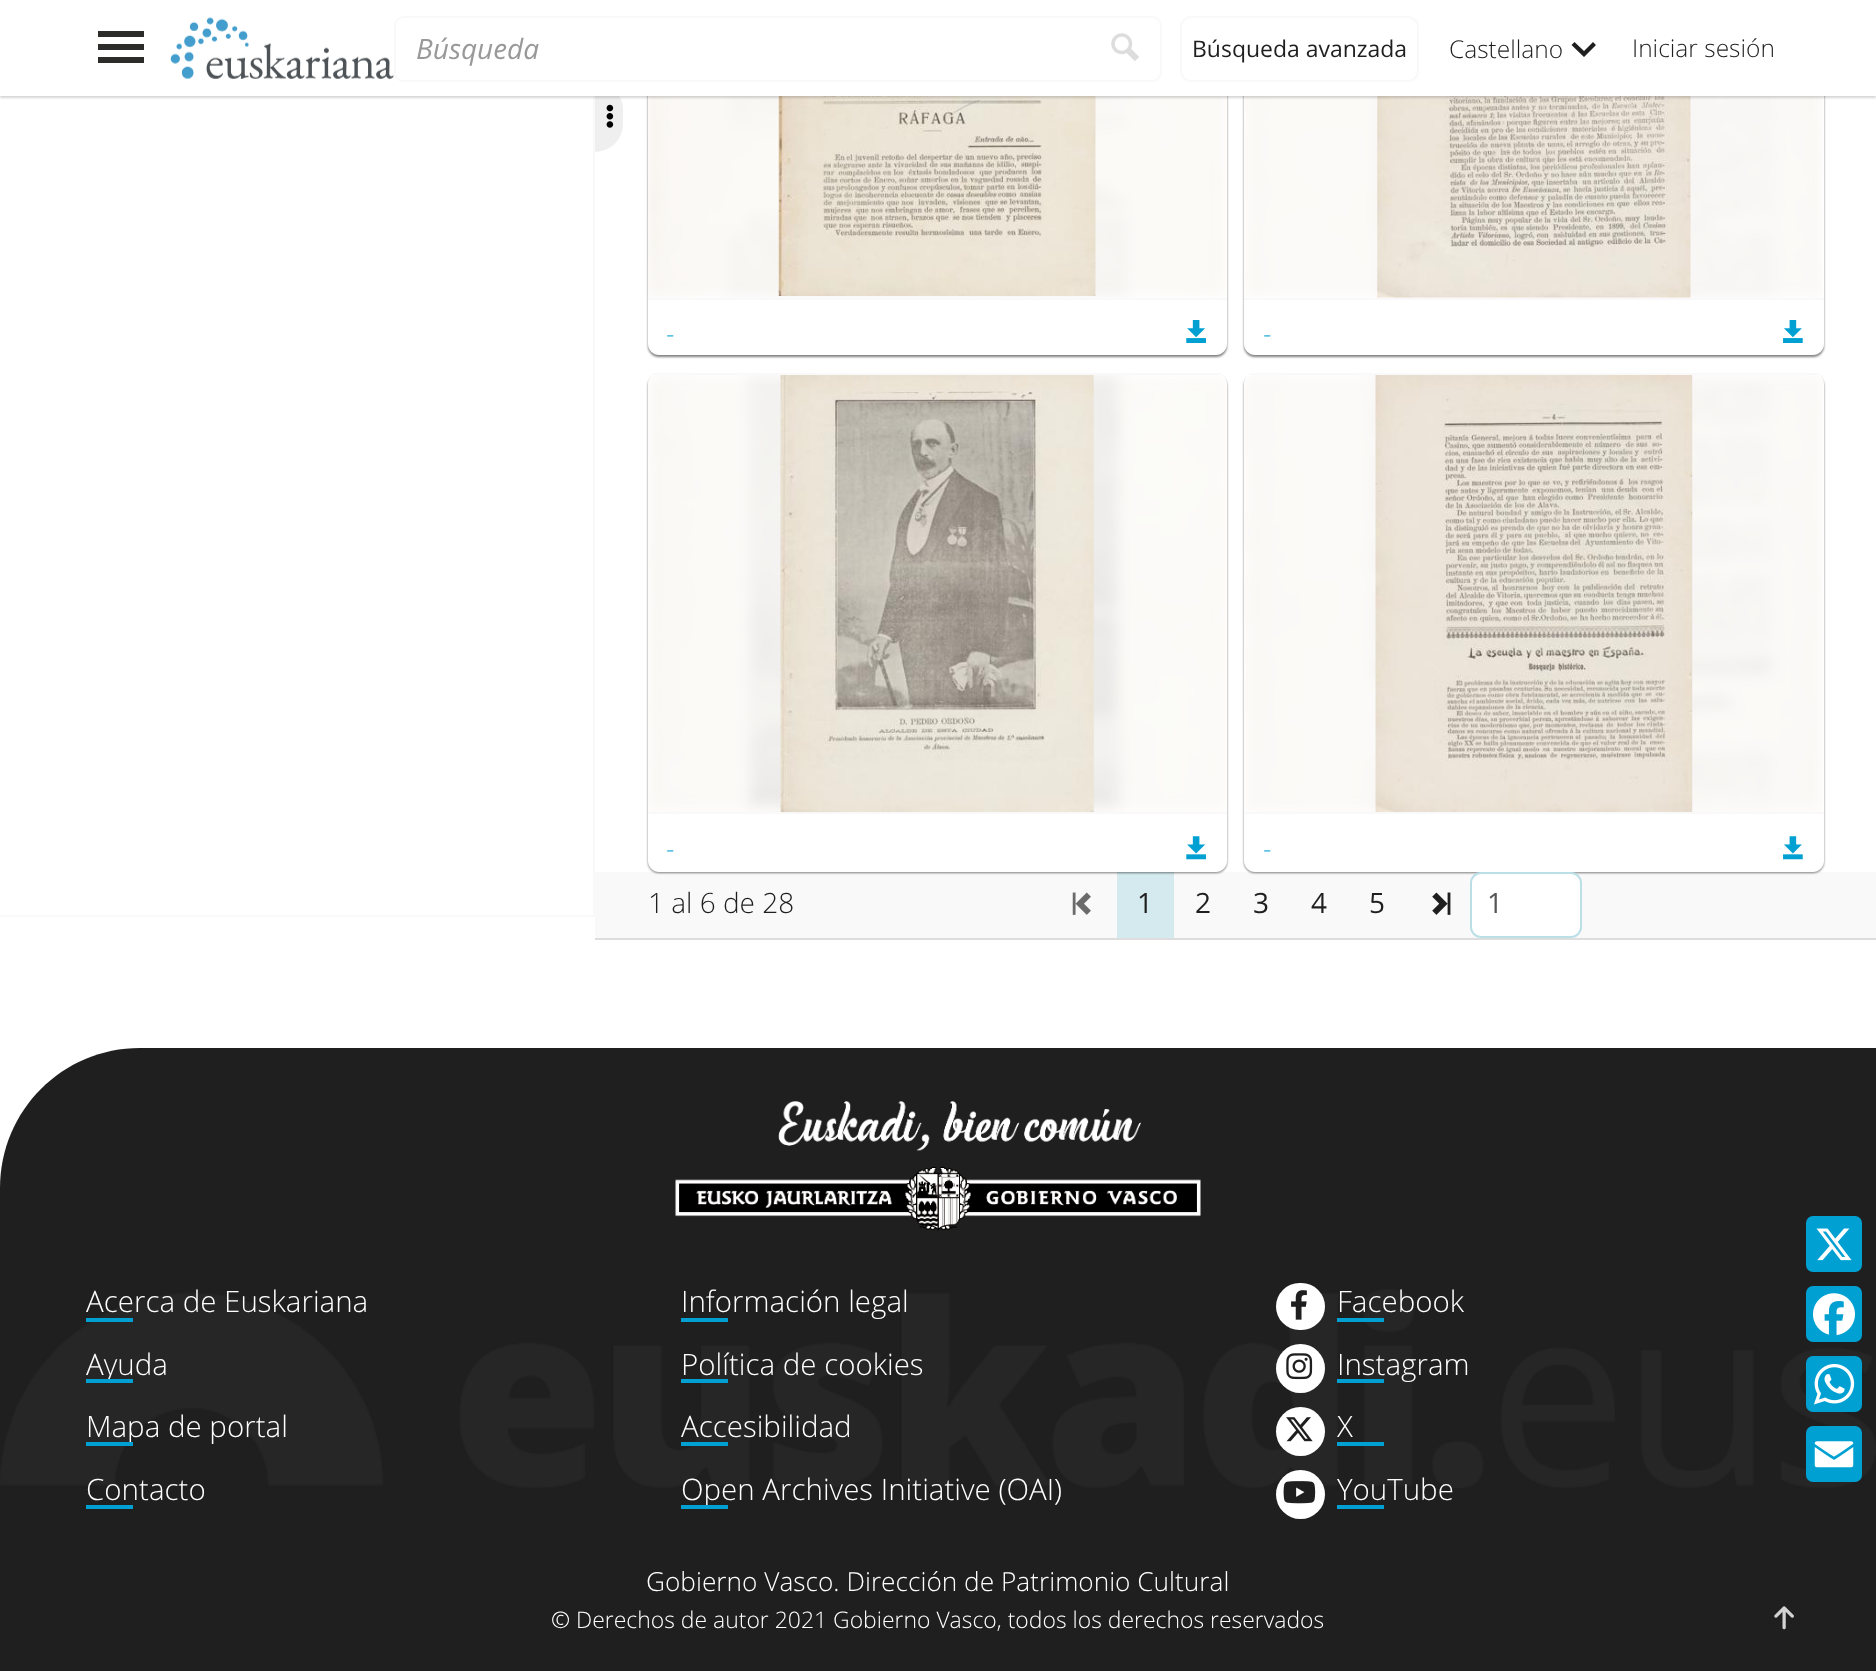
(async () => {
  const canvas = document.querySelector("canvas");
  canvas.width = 1876;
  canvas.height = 1671;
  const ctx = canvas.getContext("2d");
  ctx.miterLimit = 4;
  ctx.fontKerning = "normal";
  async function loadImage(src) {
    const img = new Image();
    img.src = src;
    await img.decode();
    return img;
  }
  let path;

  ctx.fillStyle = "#ffffff";
  ctx.fillRect(0, 0, 1876, 1671);
  ctx.fillStyle = "#f9f9f9";
  ctx.fillRect(593, 96, 2, 821);
  ctx.fillStyle = "#efefef";
  ctx.beginPath();
  ctx.roundRect(595, 82, 28, 70, [0, 28, 28, 0]);
  ctx.fill();
  ctx.drawImage(await loadImage("img/4.png"), 647, 96, 580, 202);
  ctx.save();
  path = new Path2D("M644 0H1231V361H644ZM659-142H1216C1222-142 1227-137 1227-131V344C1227 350 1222 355 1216 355H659C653 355 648 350 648 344V-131C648-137 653-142 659-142Z");
  ctx.clip(path, "evenodd");
  ctx.fillStyle = "rgba(0, 0, 0, 0.5)";
  ctx.filter = "blur(1px)";
  ctx.beginPath();
  ctx.roundRect(648, -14, 579, 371, 11);
  ctx.fill();
  ctx.filter = "none";
  ctx.restore();
  ctx.drawImage(await loadImage("img/5.png"), 778, 96, 318, 200);
  ctx.drawImage(await loadImage("img/7.png"), 1244, 96, 579, 202);
  ctx.save();
  path = new Path2D("M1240 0H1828V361H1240ZM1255-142H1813C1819-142 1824-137 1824-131V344C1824 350 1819 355 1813 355H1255C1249 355 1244 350 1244 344V-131C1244-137 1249-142 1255-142Z");
  ctx.clip(path, "evenodd");
  ctx.fillStyle = "rgba(0, 0, 0, 0.5)";
  ctx.filter = "blur(1px)";
  ctx.beginPath();
  ctx.roundRect(1244, -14, 580, 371, 11);
  ctx.fill();
  ctx.filter = "none";
  ctx.restore();
  ctx.drawImage(await loadImage("img/8.png"), 1377, 96, 314, 202);
  ctx.fillStyle = "rgba(0, 0, 0, 0.16)";
  ctx.filter = "blur(1px)";
  ctx.beginPath();
  ctx.rect(0, 2, 1876, 96);
  ctx.fill();
  ctx.filter = "none";
  ctx.fillStyle = "#ffffff";
  ctx.fillRect(0, 0, 1876, 96);
  ctx.fillStyle = "#2c2c2b";
  path = new Path2D("M98 31H144V37H98ZM98 44H144V50H98ZM98 57H144V63H98Z");
  ctx.fill(path);
  ctx.drawImage(await loadImage("img/1.png"), 170, 17, 224, 62);
  ctx.fillStyle = "#f9f9f9";
  path = new Path2D("M404 16H1090V82H404C398 82 394 78 394 72V26C394 20 398 16 404 16ZM404 18H1090V80H404C399 80 396 77 396 72V26C396 21 399 18 404 18Z");
  ctx.fill(path, "evenodd");
  path = new Path2D("M1090 16H1152C1157 16 1162 20 1162 26V72C1162 78 1157 82 1152 82H1090ZM1090 18H1152C1156 18 1160 21 1160 26V72C1160 77 1156 80 1152 80H1090Z");
  ctx.fill(path, "evenodd");
  ctx.drawImage(await loadImage("img/2.png"), 1111, 33, 28, 28);
  ctx.beginPath();
  ctx.roundRect(1181, 17, 237, 64, 10);
  ctx.strokeStyle = "#f9f9f9";
  ctx.lineWidth = 2;
  ctx.stroke();
  ctx.fillStyle = "#1f1f1f";
  path = new Path2D("M1596 45L1593 42L1584 51L1574.5 42L1571.5 45L1584 57Z");
  ctx.fill(path);
  ctx.fillStyle = "#f9f9f9";
  ctx.fillRect(0, 915, 595, 2);
  ctx.drawImage(await loadImage("img/3.png"), 606, 104, 8, 24);
  ctx.fillRect(648, 298, 579, 2);
  ctx.drawImage(await loadImage("img/6.png"), 1186, 320, 20, 23);
  ctx.fillRect(1244, 298, 580, 2);
  ctx.drawImage(await loadImage("img/9.png"), 1783, 320, 20, 23);
  ctx.drawImage(await loadImage("img/10.png"), 648, 375, 579, 437);
  ctx.fillRect(595, 872, 1281, 66);
  ctx.fillStyle = "#d4eaee";
  ctx.fillRect(1117, 872, 57, 66);
  ctx.save();
  path = new Path2D("M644 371H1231V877H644ZM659 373H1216C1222 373 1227 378 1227 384V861C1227 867 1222 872 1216 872H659C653 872 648 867 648 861V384C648 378 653 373 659 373Z");
  ctx.clip(path, "evenodd");
  ctx.fillStyle = "rgba(0, 0, 0, 0.5)";
  ctx.filter = "blur(1px)";
  ctx.beginPath();
  ctx.roundRect(648, 375, 579, 498, 11);
  ctx.fill();
  ctx.filter = "none";
  ctx.restore();
  ctx.fillStyle = "#f9f9f9";
  ctx.fillRect(653, 373, 569, 2);
  ctx.fillRect(648, 812, 579, 2);
  ctx.drawImage(await loadImage("img/11.png"), 780, 375, 314, 438);
  ctx.drawImage(await loadImage("img/12.png"), 1186, 836, 20, 24);
  ctx.drawImage(await loadImage("img/13.png"), 1244, 375, 579, 437);
  ctx.save();
  path = new Path2D("M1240 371H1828V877H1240ZM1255 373H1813C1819 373 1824 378 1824 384V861C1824 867 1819 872 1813 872H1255C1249 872 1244 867 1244 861V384C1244 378 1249 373 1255 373Z");
  ctx.clip(path, "evenodd");
  ctx.fillStyle = "rgba(0, 0, 0, 0.5)";
  ctx.filter = "blur(1px)";
  ctx.beginPath();
  ctx.roundRect(1244, 375, 580, 498, 11);
  ctx.fill();
  ctx.filter = "none";
  ctx.restore();
  ctx.fillRect(1250, 373, 568, 2);
  ctx.fillRect(1244, 812, 580, 2);
  ctx.drawImage(await loadImage("img/14.png"), 1375, 375, 318, 437);
  ctx.drawImage(await loadImage("img/15.png"), 1783, 836, 20, 24);
  ctx.fillStyle = "#dddddd";
  ctx.fillRect(595, 938, 1281, 2);
  ctx.drawImage(await loadImage("img/16.png"), 1072, 892, 19, 23);
  ctx.drawImage(await loadImage("img/17.png"), 1432, 892, 19, 23);
  ctx.fillStyle = "#ffffff";
  ctx.beginPath();
  ctx.roundRect(1471, 873, 110, 64, 10);
  ctx.fill();
  ctx.strokeStyle = "#badfe7";
  ctx.stroke();
  ctx.fillStyle = "#1f1f1f";
  path = new Path2D("M140 1048H1876V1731H0V1188C0 1110.5 62.5 1048 140 1048Z");
  ctx.fill(path);
  ctx.drawImage(await loadImage("img/18.png"), 0, 1289, 1876, 199);
  ctx.drawImage(await loadImage("img/19.png"), 675, 1101, 526, 130);
  for (const [x, y, w, h, color] of [
    [86, 1318, 47, 4, "#00a0d3"],
    [86, 1505, 47, 4, "#00a0d3"],
    [681, 1379, 47, 4, "#00a0d3"],
    [681, 1442, 47, 4, "#00a0d3"],
  ]) {
    ctx.fillStyle = color;
    ctx.fillRect(x, y, w, h);
  }
  ctx.fillStyle = "#ffffff";
  ctx.beginPath();
  ctx.roundRect(1276, 1283, 49, 47, 23.5);
  ctx.fill();
  ctx.drawImage(await loadImage("img/20.png"), 1291, 1290, 16, 30);
  ctx.fillStyle = "#00a0d3";
  ctx.fillRect(1337, 1318, 47, 4);
  ctx.fillStyle = "#ffffff";
  ctx.beginPath();
  ctx.arc(1300.5, 1368.5, 24.5, 0, Math.PI * 2);
  ctx.fill();
  ctx.drawImage(await loadImage("img/21.png"), 1286, 1353, 27, 27);
  ctx.beginPath();
  ctx.arc(1300.5, 1431.5, 24.5, 0, Math.PI * 2);
  ctx.fill();
  ctx.drawImage(await loadImage("img/22.png"), 1286, 1417, 27, 25);
  ctx.fillStyle = "#00a0d3";
  ctx.fillRect(1337, 1442, 47, 4);
  ctx.fillStyle = "#ffffff";
  ctx.beginPath();
  ctx.arc(1300.5, 1494.5, 24.5, 0, Math.PI * 2);
  ctx.fill();
  ctx.drawImage(await loadImage("img/23.png"), 1283, 1481, 33, 23);
  ctx.fillStyle = "#00a0d3";
  ctx.fillRect(1337, 1505, 47, 4);
  ctx.drawImage(await loadImage("img/24.png"), 1774, 1606, 20, 24);
  ctx.beginPath();
  ctx.roundRect(1806, 1216, 56, 56, 7);
  ctx.fill();
  ctx.drawImage(await loadImage("img/25.png"), 1816, 1228, 36, 33);
  ctx.beginPath();
  ctx.roundRect(1806, 1286, 56, 56, 7);
  ctx.fill();
  ctx.drawImage(await loadImage("img/26.png"), 1813, 1293, 42, 43);
  ctx.beginPath();
  ctx.roundRect(1806, 1356, 56, 56, 7);
  ctx.fill();
  ctx.drawImage(await loadImage("img/27.png"), 1813, 1364, 42, 41);
  ctx.beginPath();
  ctx.roundRect(1806, 1426, 56, 56, 7);
  ctx.fill();
  ctx.drawImage(await loadImage("img/28.png"), 1814, 1441, 40, 27);
  ctx.font = "italic 28px Open Sans";
  ctx.fillStyle = "#999999";
  ctx.fillText("Búsqueda", 416, 59);
  ctx.font = "22.95px Open Sans";
  ctx.fillStyle = "#1f1f1f";
  ctx.fillText("Búsqueda avanzada", 1192, 57);
  ctx.font = "300 24.5px Open Sans";
  ctx.fillText("Castellano", 1449, 58);
  ctx.fillText("Iniciar sesión", 1632, 57);
  ctx.font = "300 26.25px Open Sans";
  ctx.fillStyle = "#00a0d3";
  for (const [text, x, y] of [
    ["-", 666, 343],
    ["-", 1263, 343],
    ["-", 666, 858],
    ["-", 1263, 858],
  ]) {
    ctx.fillText(text, x, y);
  }
  ctx.font = "300 28px Open Sans";
  ctx.fillStyle = "#1f1f1f";
  ctx.fillText("1 al 6 de 28", 648, 913);
  ctx.font = "28px Open Sans";
  for (const [text, x, y] of [
    ["1", 1137, 913],
    ["2", 1195, 913],
    ["3", 1253, 913],
    ["4", 1311, 913],
    ["5", 1369, 913],
  ]) {
    ctx.fillText(text, x, y);
  }
  ctx.fillStyle = "#555555";
  ctx.fillText("1", 1487, 913);
  ctx.font = "300 29.5px Open Sans";
  ctx.fillStyle = "#ffffff";
  ctx.fillText("Acerca de Euskariana", 86, 1312);
  ctx.fillText("Ayuda", 86, 1375);
  ctx.fillStyle = "#00a0d3";
  ctx.fillRect(86, 1379, 47, 4);
  ctx.fillStyle = "#ffffff";
  ctx.fillText("Mapa de portal", 86, 1437);
  ctx.fillStyle = "#00a0d3";
  ctx.fillRect(86, 1442, 47, 4);
  ctx.fillStyle = "#ffffff";
  ctx.fillText("Contacto", 86, 1500);
  ctx.fillText("Información legal", 681, 1312);
  ctx.fillStyle = "#00a0d3";
  ctx.fillRect(681, 1318, 47, 4);
  ctx.fillStyle = "#ffffff";
  for (const [text, x, y] of [
    ["Política de cookies", 681, 1375],
    ["Accesibilidad", 681, 1437],
    ["Open Archives Initiative (OAI)", 681, 1500],
  ]) {
    ctx.fillText(text, x, y);
  }
  ctx.fillStyle = "#00a0d3";
  ctx.fillRect(681, 1505, 47, 4);
  ctx.fillStyle = "#ffffff";
  ctx.fillText("Facebook", 1337, 1312);
  ctx.fillText("Instagram", 1337, 1375);
  ctx.fillStyle = "#00a0d3";
  ctx.fillRect(1337, 1379, 47, 4);
  ctx.fillStyle = "#ffffff";
  ctx.fillText("X", 1337, 1437);
  ctx.fillText("YouTube", 1337, 1500);
  ctx.font = "300 26.25px Open Sans";
  ctx.fillText("Gobierno Vasco. Dirección de Patrimonio Cultural", 646, 1591);
  ctx.font = "300 22.95px Open Sans";
  ctx.fillText("© Derechos de autor 2021 Gobierno Vasco, todos los derechos reservados", 551, 1628);
})();
